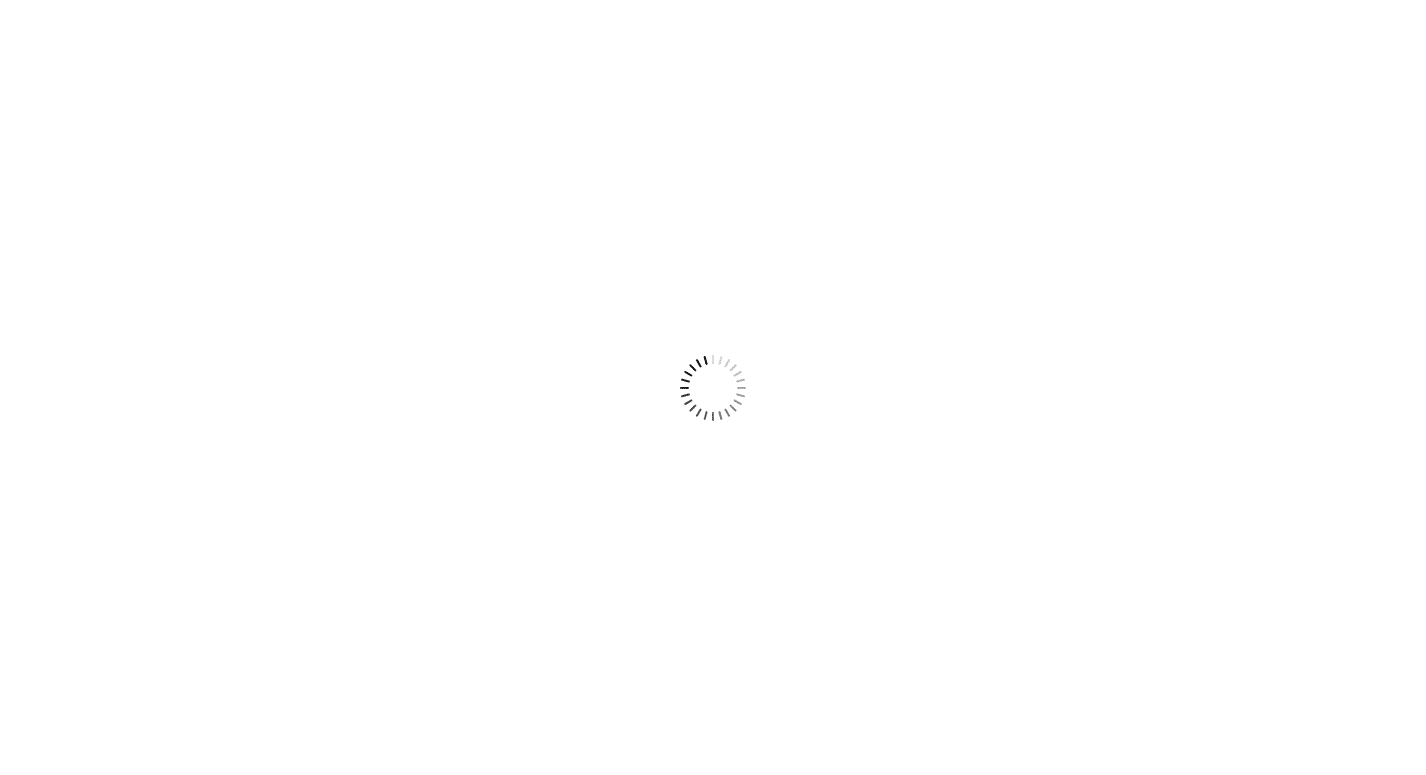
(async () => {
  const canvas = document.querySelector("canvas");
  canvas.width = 1426;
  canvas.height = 775;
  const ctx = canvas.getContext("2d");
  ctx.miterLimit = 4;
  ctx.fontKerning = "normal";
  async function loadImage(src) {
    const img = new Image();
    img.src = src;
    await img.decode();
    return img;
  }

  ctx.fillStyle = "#ffffff";
  ctx.fillRect(0, 0, 1426, 775);
  ctx.drawImage(await loadImage("img/1.png"), 680, 355, 66, 66);
})();
